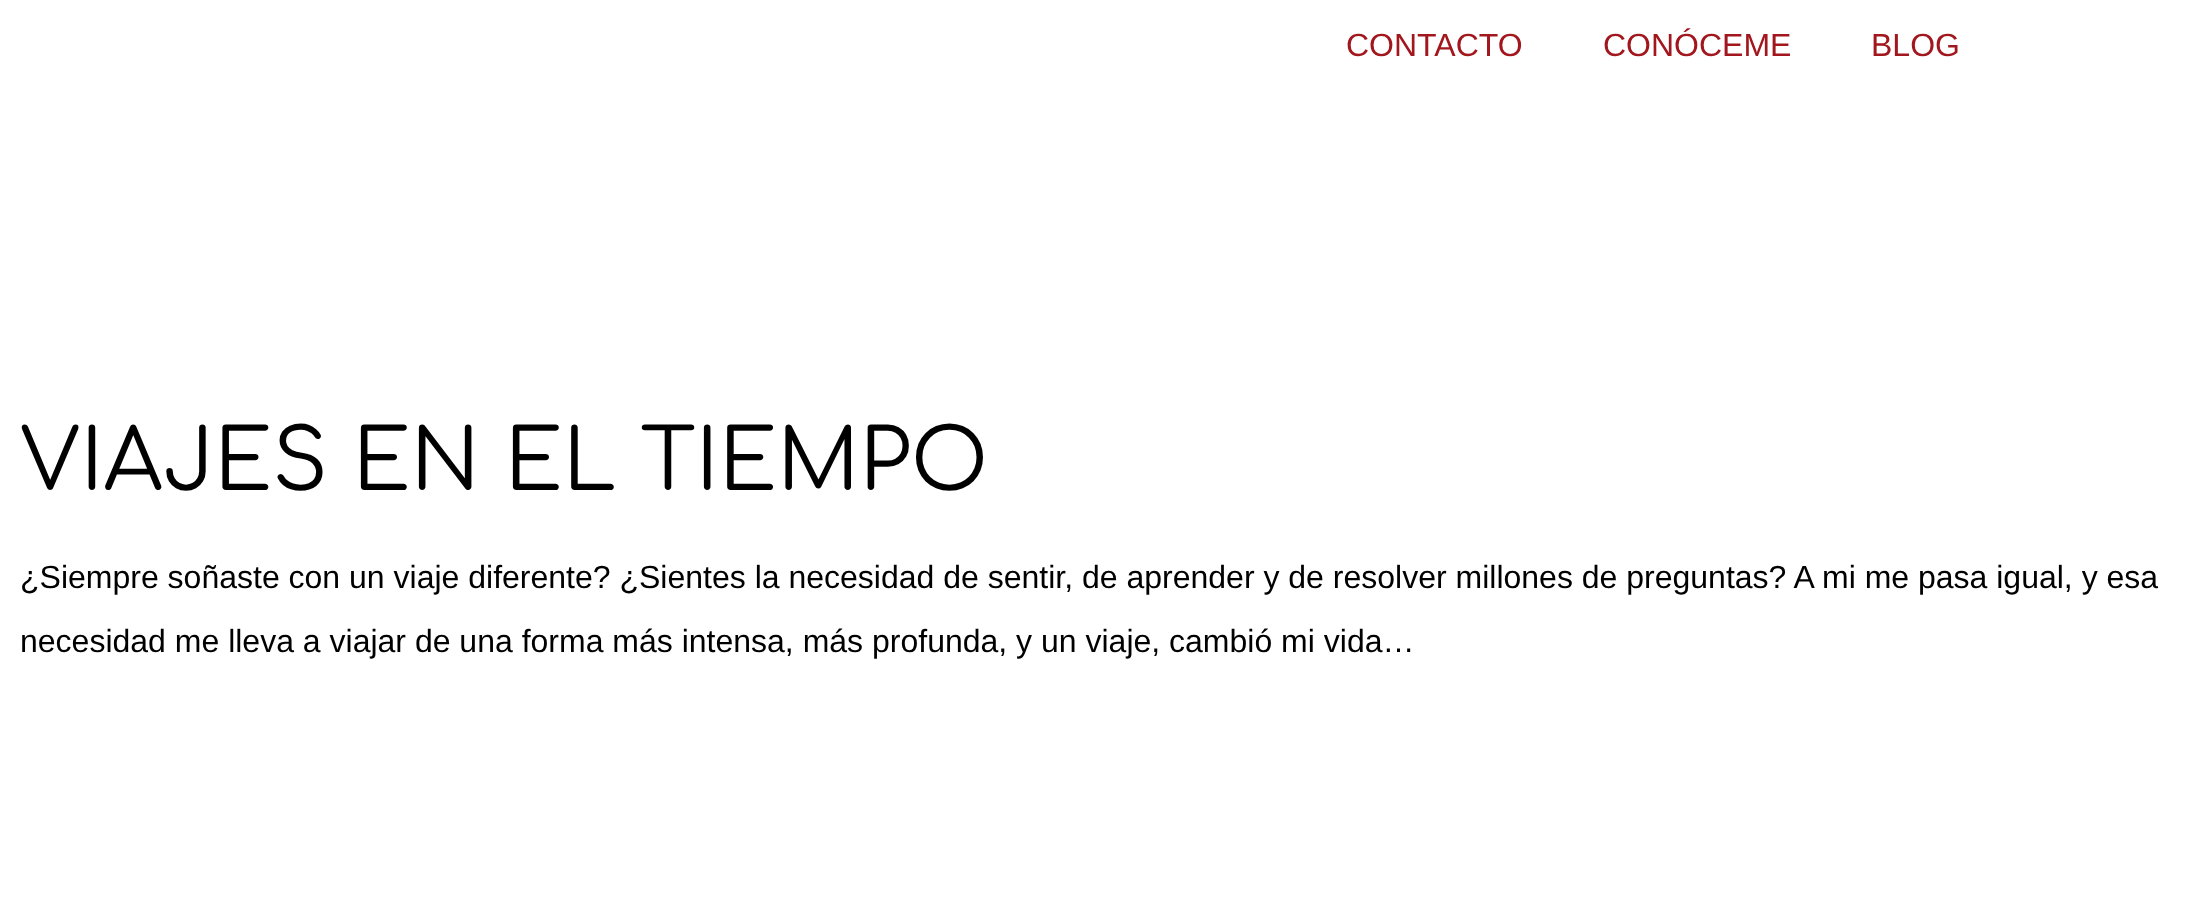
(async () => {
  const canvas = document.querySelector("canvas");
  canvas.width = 2203;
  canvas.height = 903;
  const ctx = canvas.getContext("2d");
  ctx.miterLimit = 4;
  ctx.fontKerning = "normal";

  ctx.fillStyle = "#ffffff";
  ctx.fillRect(0, 0, 2203, 903);
  ctx.font = "32px Liberation Sans";
  ctx.fillStyle = "#a2161d";
  for (const [text, x, y] of [
    ["CONTACTO", 1346, 56],
    ["CONÓCEME", 1603, 56],
    ["BLOG", 1871, 56],
  ]) {
    ctx.fillText(text, x, y);
  }
  ctx.font = "84px Comfortaa";
  ctx.fillStyle = "#000000";
  ctx.fillText("VIAJES EN EL TIEMPO", 20, 490);
  ctx.font = "32px Liberation Sans";
  ctx.fillText("¿Siempre soñaste con un viaje diferente? ¿Sientes la necesidad de sentir, de aprender y de resolver millones de preguntas? A mi me pasa igual, y esa", 20, 588);
  ctx.fillText("necesidad me lleva a viajar de una forma más intensa, más profunda, y un viaje, cambió mi vida…", 20, 652);
})();
